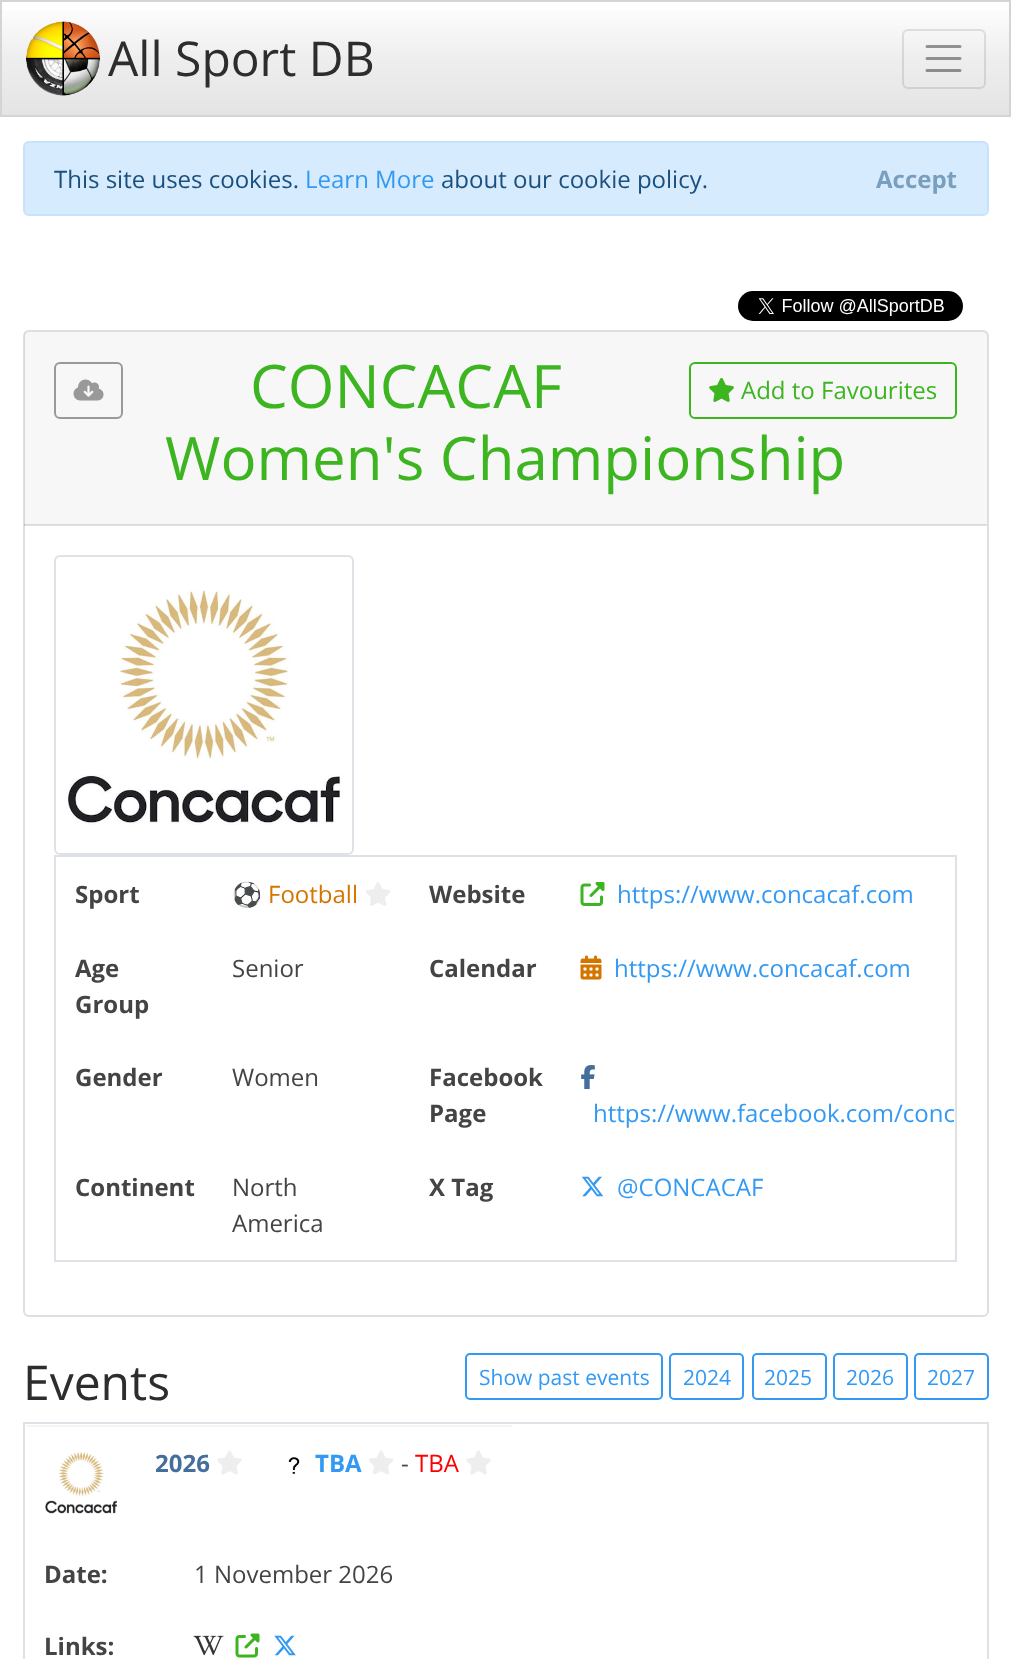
(async () => {
  const canvas = document.querySelector("canvas");
  canvas.width = 1011;
  canvas.height = 1659;
  const ctx = canvas.getContext("2d");
  ctx.miterLimit = 4;
  ctx.fontKerning = "none";
  async function loadImage(src) {
    const img = new Image();
    img.src = src;
    await img.decode();
    return img;
  }
  let gradient, path;

  ctx.fillStyle = "#ffffff";
  ctx.fillRect(0, 0, 1011, 1659);
  gradient = ctx.createLinearGradient(506, 1.5, 506, 116);
  gradient.addColorStop(0, "#ffffff");
  gradient.addColorStop(0.5, "#eeeeee");
  gradient.addColorStop(1, "#e4e4e4");
  ctx.fillStyle = gradient;
  ctx.fillRect(2, 10, 1007, 105);
  ctx.strokeStyle = "#d5d4d4";
  ctx.lineWidth = 2;
  ctx.strokeRect(1, 1, 1009, 115);
  ctx.drawImage(await loadImage("img/1.png"), 26, 21, 74, 75);
  ctx.beginPath();
  ctx.roundRect(903, 30, 82, 58, 5);
  ctx.strokeStyle = "rgba(0, 0, 0, 0.1)";
  ctx.stroke();
  path = new Path2D("M927 46.5H960M927 58.5H960M927 70.5H960");
  ctx.strokeStyle = "rgba(0, 0, 0, 0.4)";
  ctx.lineWidth = 3;
  ctx.lineCap = "round";
  ctx.stroke(path);
  ctx.fillStyle = "#d6ebfd";
  ctx.beginPath();
  ctx.roundRect(24, 142, 964, 73, 5);
  ctx.fill();
  ctx.strokeStyle = "#c6e2fc";
  ctx.lineWidth = 2;
  ctx.stroke();
  ctx.drawImage(await loadImage("img/2.png"), 738, 291, 225, 30);
  ctx.beginPath();
  ctx.roundRect(24, 331, 964, 985, 5);
  ctx.strokeStyle = "#dfdfdf";
  ctx.stroke();
  ctx.fillStyle = "rgba(0, 0, 0, 0.03)";
  ctx.fillRect(24, 332, 963, 193);
  ctx.fillStyle = "rgba(0, 0, 0, 0.12)";
  ctx.fillRect(24, 524, 963, 2);
  ctx.beginPath();
  ctx.roundRect(55, 363, 67, 55, 5);
  ctx.strokeStyle = "#999999";
  ctx.stroke();
  ctx.drawImage(await loadImage("img/3.png"), 73, 379, 31, 22);
  ctx.beginPath();
  ctx.roundRect(690, 363, 266, 55, 5);
  ctx.strokeStyle = "#3cb521";
  ctx.stroke();
  ctx.drawImage(await loadImage("img/4.png"), 709, 378, 25, 24);
  ctx.beginPath();
  ctx.roundRect(55, 556, 298, 298, 5);
  ctx.strokeStyle = "#dee2e6";
  ctx.stroke();
  ctx.drawImage(await loadImage("img/5.png"), 66, 590, 275, 235);
  ctx.strokeRect(55, 856, 901, 405);
  ctx.drawImage(await loadImage("img/6.png"), 365, 882, 26, 24);
  ctx.drawImage(await loadImage("img/7.png"), 580, 882, 25, 24);
  ctx.drawImage(await loadImage("img/8.png"), 580, 955, 22, 25);
  ctx.drawImage(await loadImage("img/9.png"), 581, 1065, 14, 24);
  ctx.drawImage(await loadImage("img/10.png"), 581, 1176, 23, 21);
  ctx.beginPath();
  ctx.roundRect(466, 1354, 196, 45, 4);
  ctx.strokeStyle = "#3399f3";
  ctx.stroke();
  ctx.beginPath();
  ctx.roundRect(670, 1354, 73, 45, 4);
  ctx.stroke();
  ctx.beginPath();
  ctx.roundRect(753, 1354, 73, 45, 4);
  ctx.stroke();
  ctx.beginPath();
  ctx.roundRect(834, 1354, 73, 45, 4);
  ctx.stroke();
  ctx.beginPath();
  ctx.roundRect(915, 1354, 73, 45, 4);
  ctx.stroke();
  for (const [x, y, w, h, color] of [
    [23, 1422, 966, 2, "#dee2e6"],
    [987, 1422, 2, 237, "#dee2e6"],
    [23, 1422, 2, 237, "#dee2e6"],
    [26, 1425, 486, 2, "#f5f5f5"],
  ]) {
    ctx.fillStyle = color;
    ctx.fillRect(x, y, w, h);
  }
  ctx.drawImage(await loadImage("img/11.png"), 45, 1452, 72, 62);
  ctx.drawImage(await loadImage("img/12.png"), 217, 1450, 25, 25);
  ctx.drawImage(await loadImage("img/13.png"), 288, 1457, 12, 17);
  ctx.drawImage(await loadImage("img/14.png"), 369, 1450, 25, 25);
  ctx.drawImage(await loadImage("img/12.png"), 466, 1450, 25, 25);
  ctx.drawImage(await loadImage("img/15.png"), 193, 1635, 31, 21);
  ctx.drawImage(await loadImage("img/16.png"), 235, 1633, 25, 25);
  ctx.drawImage(await loadImage("img/17.png"), 274, 1635, 22, 21);
  ctx.font = "48px Open Sans";
  ctx.fillStyle = "#2d2d2d";
  ctx.fillText("All Sport DB", 108, 76);
  ctx.font = "24px Open Sans";
  ctx.fillStyle = "#1b507e";
  ctx.fillText("This site uses cookies.", 54, 188);
  ctx.fillStyle = "#3399f3";
  ctx.fillText("Learn More", 305, 188);
  ctx.fillStyle = "#1b507e";
  ctx.fillText("about our cookie policy.", 441, 188);
  ctx.font = "bold 24px Open Sans";
  ctx.fillStyle = "#799ebe";
  ctx.fillText("Accept", 876, 188);
  ctx.font = "60px Open Sans";
  ctx.fillStyle = "#3cb521";
  ctx.fillText("CONCACAF", 250, 408);
  ctx.fillText("Women's Championship", 165, 480);
  ctx.font = "24px Open Sans";
  ctx.fillText("Add to Favourites", 741, 399);
  ctx.font = "bold 24px Open Sans";
  ctx.fillStyle = "#444444";
  ctx.fillText("Sport", 75, 903);
  ctx.font = "24px Noto Color Emoji";
  ctx.fillText("⚽", 232, 903);
  ctx.font = "24px Open Sans";
  ctx.fillStyle = "#d47500";
  ctx.fillText("Football", 268, 903);
  ctx.font = "bold 24px Open Sans";
  ctx.fillStyle = "#444444";
  ctx.fillText("Website", 429, 903);
  ctx.font = "24px Open Sans";
  ctx.fillStyle = "#3399f3";
  ctx.fillText("https://www.concacaf.com", 617, 903);
  ctx.font = "bold 24px Open Sans";
  ctx.fillStyle = "#444444";
  ctx.fillText("Age", 75, 977);
  ctx.fillText("Group", 75, 1013);
  ctx.font = "24px Open Sans";
  ctx.fillText("Senior", 232, 977);
  ctx.font = "bold 24px Open Sans";
  ctx.fillText("Calendar", 429, 977);
  ctx.font = "24px Open Sans";
  ctx.fillStyle = "#3399f3";
  ctx.fillText("https://www.concacaf.com", 614, 977);
  ctx.font = "bold 24px Open Sans";
  ctx.fillStyle = "#444444";
  ctx.fillText("Gender", 75, 1086);
  ctx.font = "24px Open Sans";
  ctx.fillText("Women", 232, 1086);
  ctx.font = "bold 24px Open Sans";
  ctx.fillText("Facebook", 429, 1086);
  ctx.fillText("Page", 429, 1122);
  ctx.font = "24px Open Sans";
  ctx.fillStyle = "#3399f3";
  ctx.fillText("https://www.facebook.com/conc", 593, 1122);
  ctx.font = "bold 24px Open Sans";
  ctx.fillStyle = "#444444";
  ctx.fillText("Continent", 75, 1196);
  ctx.font = "24px Open Sans";
  ctx.fillText("North", 232, 1196);
  ctx.fillText("America", 232, 1232);
  ctx.font = "bold 24px Open Sans";
  ctx.fillText("X Tag", 429, 1196);
  ctx.font = "24px Open Sans";
  ctx.fillStyle = "#3399f3";
  ctx.fillText("@CONCACAF", 617, 1196);
  ctx.font = "48px Open Sans";
  ctx.fillStyle = "#2d2d2d";
  ctx.fillText("Events", 23, 1400);
  ctx.font = "21px Open Sans";
  ctx.fillStyle = "#3399f3";
  for (const [text, x, y] of [
    ["Show past events", 479, 1385],
    ["2024", 683, 1385],
    ["2025", 764, 1385],
    ["2026", 846, 1385],
    ["2027", 927, 1385],
  ]) {
    ctx.fillText(text, x, y);
  }
  ctx.font = "bold 24px Open Sans";
  ctx.fillStyle = "#446e9b";
  ctx.fillText("2026", 155, 1472);
  ctx.fillStyle = "#3399f3";
  ctx.fillText("TBA", 315, 1472);
  ctx.font = "24px Open Sans";
  ctx.fillStyle = "#444444";
  ctx.fillText("-", 401, 1472);
  ctx.fillStyle = "#ff0000";
  ctx.fillText("TBA", 415, 1472);
  ctx.font = "bold 24px Open Sans";
  ctx.fillStyle = "#444444";
  ctx.fillText("Date:", 44, 1583);
  ctx.font = "24px Open Sans";
  ctx.fillText("1 November 2026", 194, 1583);
  ctx.font = "bold 24px Open Sans";
  ctx.fillText("Links:", 44, 1655);
})();
